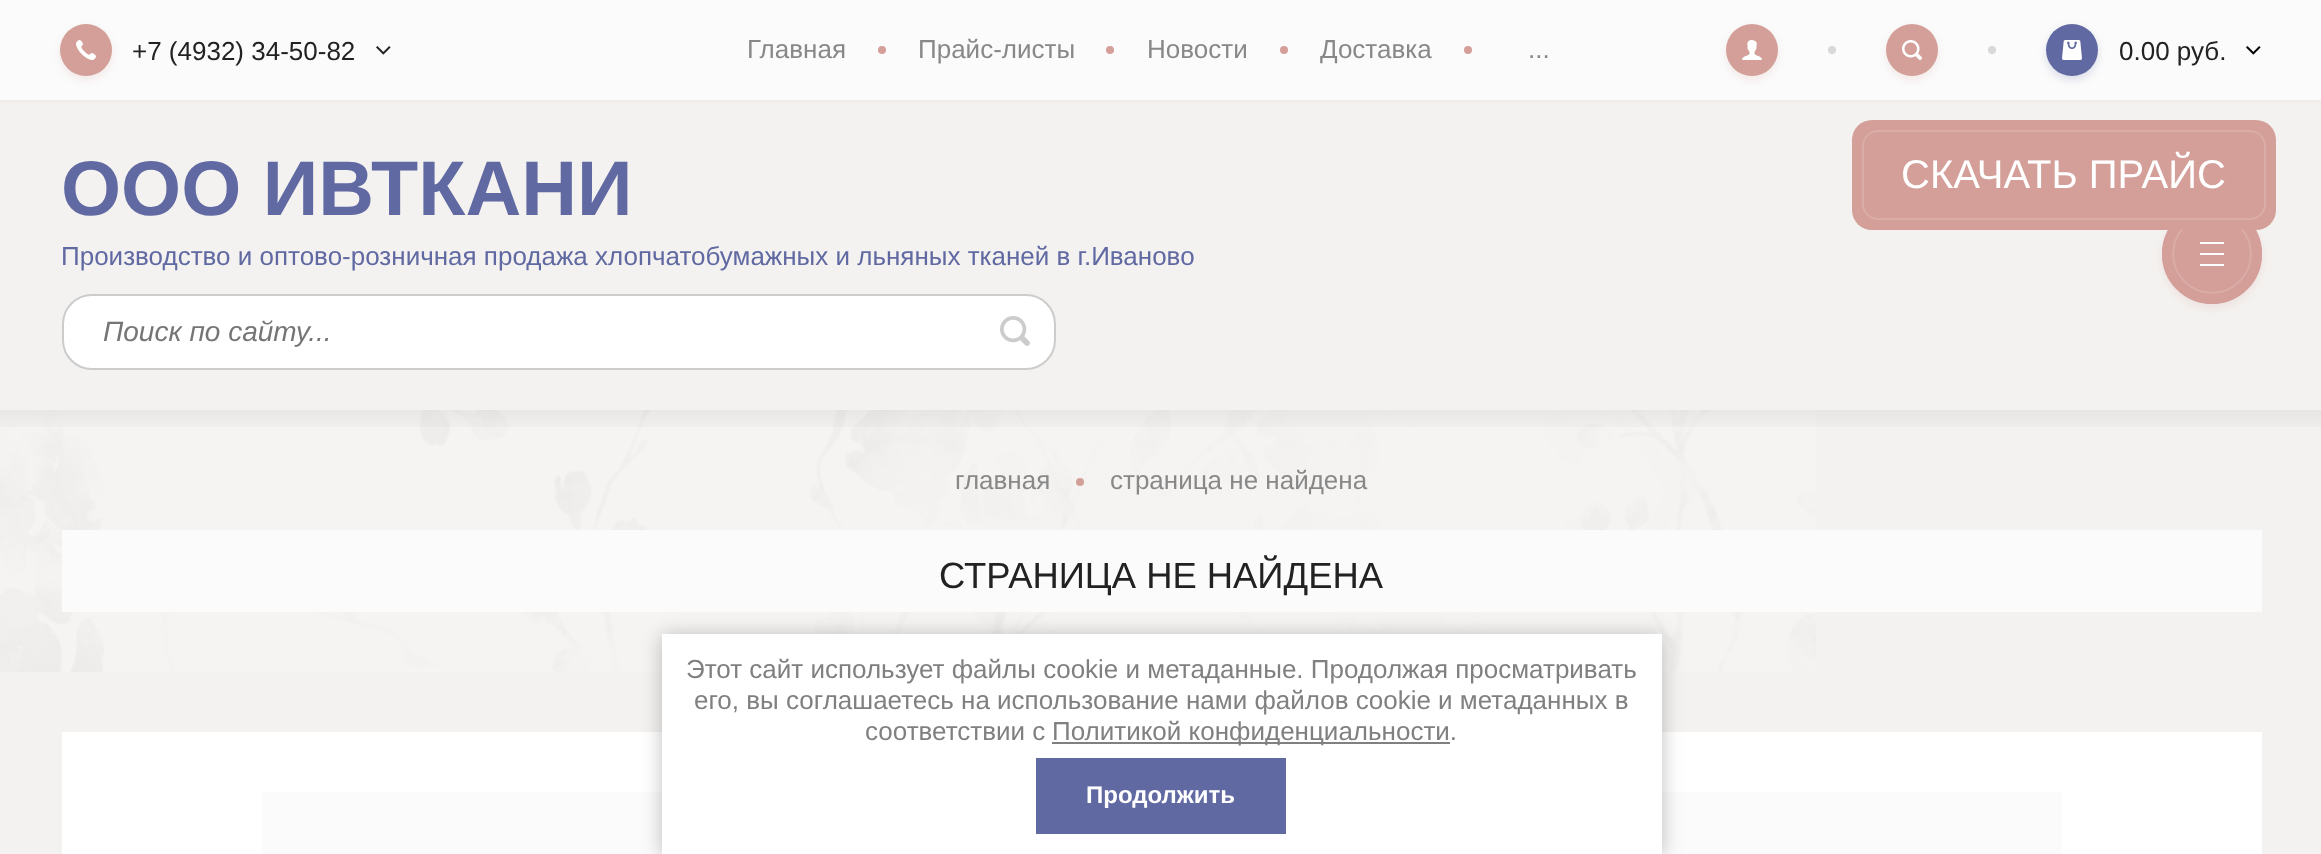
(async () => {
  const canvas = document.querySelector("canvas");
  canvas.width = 2321;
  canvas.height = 854;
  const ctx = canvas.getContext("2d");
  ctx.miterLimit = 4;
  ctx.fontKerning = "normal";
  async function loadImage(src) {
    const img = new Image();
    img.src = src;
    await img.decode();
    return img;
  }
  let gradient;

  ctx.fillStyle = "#f4f2f0";
  ctx.fillRect(0, 0, 2321, 854);
  ctx.fillStyle = "#eeeae5";
  ctx.filter = "blur(2px)";
  ctx.beginPath();
  ctx.rect(0, 2, 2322, 100);
  ctx.fill();
  ctx.filter = "none";
  ctx.fillStyle = "#fbfbfb";
  ctx.fillRect(0, 0, 2321, 100);
  ctx.fillStyle = "rgba(212, 159, 153, 0.2)";
  ctx.filter = "blur(4px)";
  ctx.beginPath();
  ctx.roundRect(60, 28, 52, 52, 26);
  ctx.fill();
  ctx.filter = "none";
  ctx.fillStyle = "#d49f99";
  ctx.beginPath();
  ctx.arc(86, 50, 26, 0, Math.PI * 2);
  ctx.fill();
  ctx.drawImage(await loadImage("img/1.png"), 76, 40, 20, 20);
  ctx.drawImage(await loadImage("img/2.png"), 376, 46, 15, 9);
  ctx.beginPath();
  ctx.arc(882, 50, 4, 0, Math.PI * 2);
  ctx.fill();
  ctx.beginPath();
  ctx.arc(1110, 50, 4, 0, Math.PI * 2);
  ctx.fill();
  ctx.beginPath();
  ctx.arc(1284, 50, 4, 0, Math.PI * 2);
  ctx.fill();
  ctx.beginPath();
  ctx.arc(1468, 50, 4, 0, Math.PI * 2);
  ctx.fill();
  ctx.fillStyle = "rgba(212, 159, 153, 0.2)";
  ctx.filter = "blur(4px)";
  ctx.beginPath();
  ctx.roundRect(1726, 28, 52, 52, 26);
  ctx.fill();
  ctx.filter = "none";
  ctx.fillStyle = "#d49f99";
  ctx.beginPath();
  ctx.arc(1752, 50, 26, 0, Math.PI * 2);
  ctx.fill();
  ctx.drawImage(await loadImage("img/3.png"), 1742, 40, 20, 20);
  ctx.fillStyle = "#d8d8d8";
  ctx.beginPath();
  ctx.arc(1832, 50, 4, 0, Math.PI * 2);
  ctx.fill();
  ctx.fillStyle = "rgba(212, 159, 153, 0.2)";
  ctx.filter = "blur(4px)";
  ctx.beginPath();
  ctx.roundRect(1886, 28, 52, 52, 26);
  ctx.fill();
  ctx.filter = "none";
  ctx.fillStyle = "#d49f99";
  ctx.beginPath();
  ctx.arc(1912, 50, 26, 0, Math.PI * 2);
  ctx.fill();
  ctx.drawImage(await loadImage("img/4.png"), 1902, 40, 20, 20);
  ctx.fillStyle = "#d8d8d8";
  ctx.beginPath();
  ctx.arc(1992, 50, 4, 0, Math.PI * 2);
  ctx.fill();
  ctx.fillStyle = "rgba(96, 105, 162, 0.2)";
  ctx.filter = "blur(4px)";
  ctx.beginPath();
  ctx.roundRect(2046, 28, 52, 52, 26);
  ctx.fill();
  ctx.filter = "none";
  ctx.fillStyle = "#6069a2";
  ctx.beginPath();
  ctx.arc(2072, 50, 26, 0, Math.PI * 2);
  ctx.fill();
  ctx.drawImage(await loadImage("img/5.png"), 2062, 40, 20, 20);
  ctx.drawImage(await loadImage("img/6.png"), 2246, 46, 15, 9);
  ctx.fillStyle = "#ffffff";
  ctx.beginPath();
  ctx.roundRect(63, 295, 992, 74, 29);
  ctx.fill();
  ctx.strokeStyle = "#cccccc";
  ctx.lineWidth = 2;
  ctx.stroke();
  ctx.drawImage(await loadImage("img/7.png"), 1000, 316, 30, 30);
  ctx.fillStyle = "rgba(212, 159, 153, 0.2)";
  ctx.filter = "blur(4px)";
  ctx.beginPath();
  ctx.roundRect(2162, 208, 100, 100, 50);
  ctx.fill();
  ctx.filter = "none";
  ctx.fillStyle = "#d49f99";
  ctx.beginPath();
  ctx.arc(2212, 254, 50, 0, Math.PI * 2);
  ctx.fill();
  ctx.drawImage(await loadImage("img/8.png"), 2200, 242, 24, 24);
  ctx.beginPath();
  ctx.arc(2212, 254, 39, 0, Math.PI * 2);
  ctx.strokeStyle = "#daada8";
  ctx.stroke();
  ctx.beginPath();
  ctx.arc(2212, 254, 45, 0, Math.PI * 2);
  ctx.strokeStyle = "#d49f99";
  ctx.lineWidth = 10;
  ctx.stroke();
  ctx.beginPath();
  ctx.roundRect(1852, 120, 424, 110, 20);
  ctx.fill();
  ctx.beginPath();
  ctx.roundRect(1863, 131, 402, 88, 15);
  ctx.strokeStyle = "#daada8";
  ctx.lineWidth = 2;
  ctx.stroke();
  ctx.drawImage(await loadImage("img/9.png"), 0, 410, 1816, 262);
  gradient = ctx.createLinearGradient(1161, 410, 1161, 440);
  gradient.addColorStop(0, "rgba(0, 0, 0, 0.05)");
  gradient.addColorStop(1, "rgba(0, 0, 0, 0)");
  ctx.fillStyle = gradient;
  ctx.fillRect(0, 410, 2321, 17);
  ctx.fillStyle = "#d49f99";
  ctx.beginPath();
  ctx.arc(1080, 482, 4, 0, Math.PI * 2);
  ctx.fill();
  for (const [x, y, w, h, color] of [
    [62, 530, 2200, 82, "#fbfbfb"],
    [62, 732, 2200, 122, "#ffffff"],
    [262, 792, 1800, 62, "#fbfbfb"],
  ]) {
    ctx.fillStyle = color;
    ctx.fillRect(x, y, w, h);
  }
  ctx.fillStyle = "rgba(0, 0, 0, 0.25)";
  ctx.filter = "blur(10px)";
  ctx.beginPath();
  ctx.rect(662, 636, 1000, 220);
  ctx.fill();
  ctx.filter = "none";
  for (const [x, y, w, h, color] of [
    [662, 634, 1000, 220, "#ffffff"],
    [1052, 742, 398, 2, "#808080"],
    [1036, 758, 250, 76, "#6069a2"],
  ]) {
    ctx.fillStyle = color;
    ctx.fillRect(x, y, w, h);
  }
  ctx.font = "26px Liberation Sans";
  ctx.fillStyle = "#222222";
  ctx.fillText("+7 (4932) 34-50-82", 132, 60);
  ctx.fillStyle = "#888888";
  for (const [text, x, y] of [
    ["Главная", 747, 58],
    ["Прайс-листы", 918, 58],
    ["Новости", 1147, 58],
    ["Доставка", 1320, 58],
    ["...", 1528, 58],
  ]) {
    ctx.fillText(text, x, y);
  }
  ctx.fillStyle = "#222222";
  ctx.fillText("0.00 руб.", 2119, 60);
  ctx.font = "bold 77.25px Liberation Sans";
  ctx.fillStyle = "#6069a2";
  ctx.fillText("ООО ИВТКАНИ", 61, 215);
  ctx.font = "26px Liberation Sans";
  ctx.fillText("Производство и оптово-розничная продажа хлопчатобумажных и льняных тканей в г.Иваново", 61, 265);
  ctx.font = "italic 28px Liberation Sans";
  ctx.fillStyle = "#757575";
  ctx.fillText("Поиск по сайту...", 103, 341);
  ctx.font = "40px Liberation Sans";
  ctx.fillStyle = "#ffffff";
  ctx.fillText("СКАЧАТЬ ПРАЙС", 1901, 188);
  ctx.font = "26px Liberation Sans";
  ctx.fillStyle = "#888888";
  ctx.fillText("главная", 955, 489);
  ctx.fillText("страница не найдена", 1110, 489);
  ctx.font = "36.4px Liberation Sans";
  ctx.fillStyle = "#222222";
  ctx.fillText("СТРАНИЦА НЕ НАЙДЕНА", 939, 588);
  ctx.font = "26px Liberation Sans";
  ctx.fillStyle = "#808080";
  for (const [text, x, y] of [
    ["Этот сайт использует файлы cookie и метаданные. Продолжая просматривать", 686, 678],
    ["его, вы соглашаетесь на использование нами файлов cookie и метаданных в", 694, 709],
    ["соответствии с", 865, 740],
    ["Политикой конфиденциальности.", 1052, 740],
  ]) {
    ctx.fillText(text, x, y);
  }
  ctx.font = "bold 24px Liberation Sans";
  ctx.fillStyle = "#ffffff";
  ctx.fillText("Продолжить", 1086, 803);
})();
